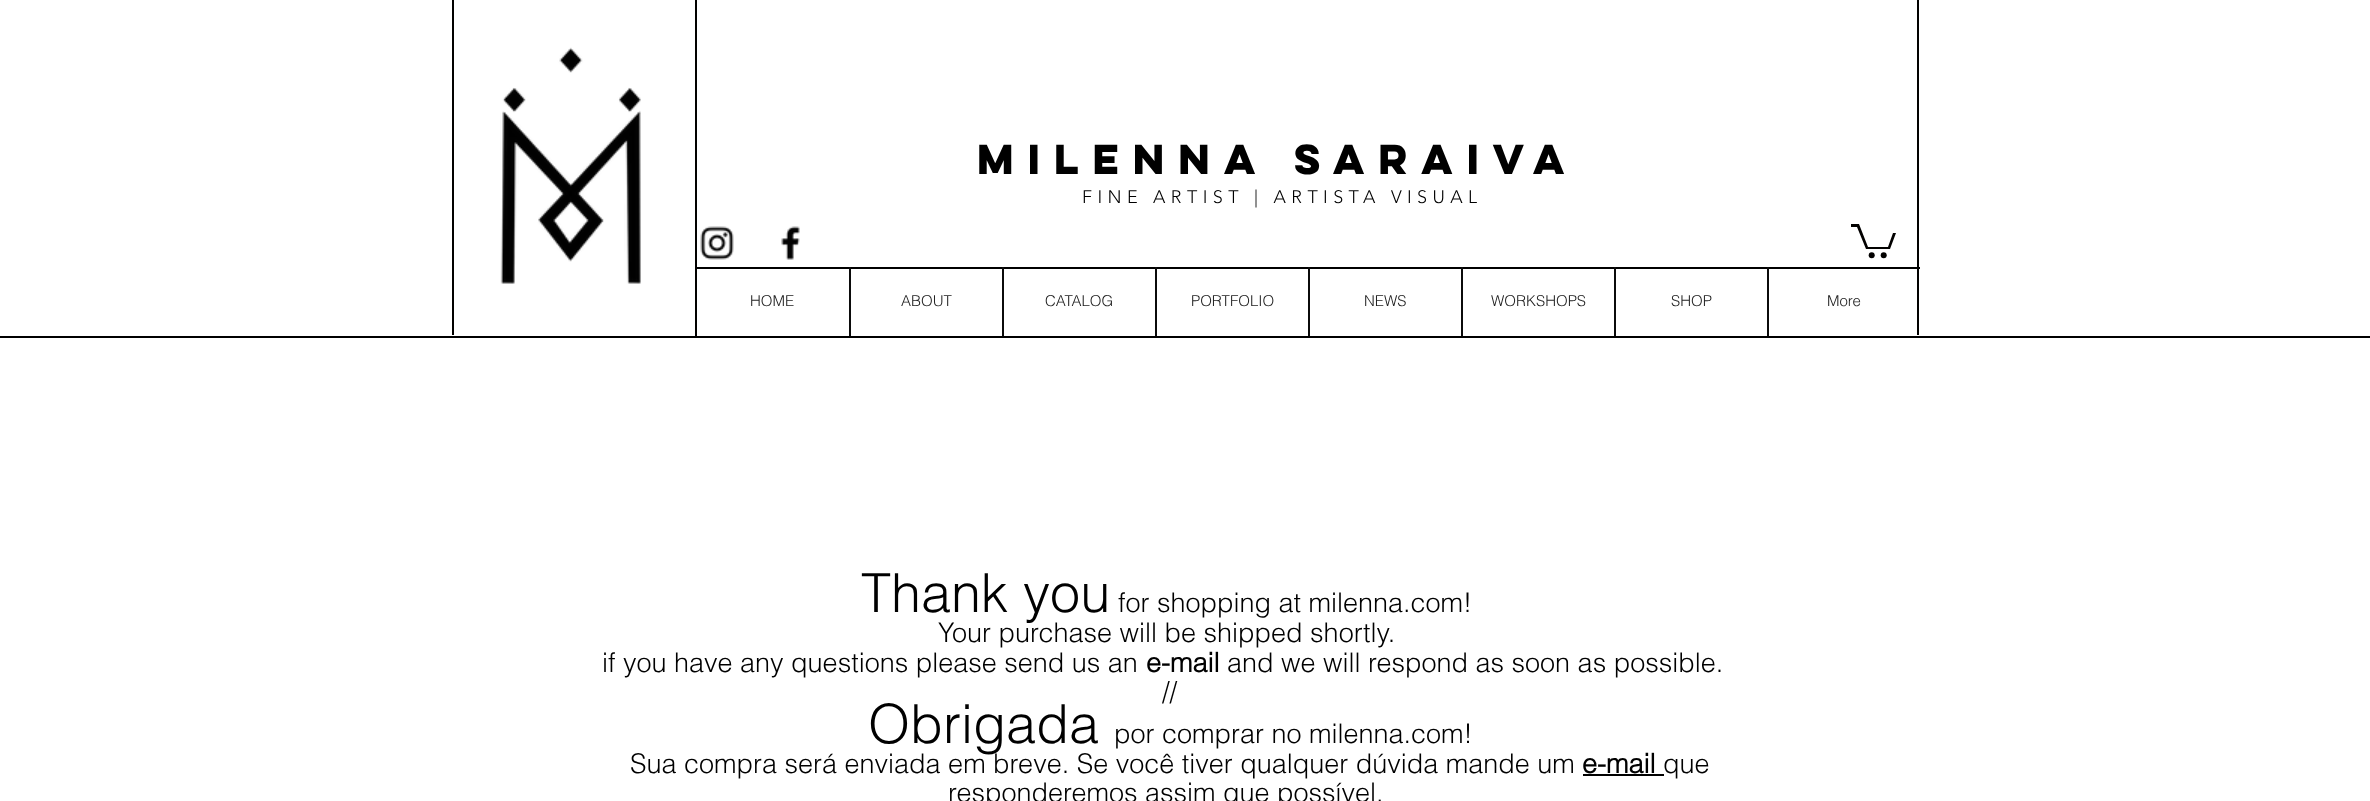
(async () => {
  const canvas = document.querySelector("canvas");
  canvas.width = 2370;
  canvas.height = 801;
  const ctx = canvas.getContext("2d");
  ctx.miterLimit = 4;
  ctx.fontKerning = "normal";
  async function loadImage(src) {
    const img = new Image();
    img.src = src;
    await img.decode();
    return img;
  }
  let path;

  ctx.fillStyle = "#ffffff";
  ctx.fillRect(0, 0, 2370, 801);
  ctx.fillStyle = "#020100";
  ctx.fillRect(452, 0, 2, 335);
  ctx.drawImage(await loadImage("img/1.png"), 500, 47, 141, 237);
  for (const [x, y, w, h, color] of [
    [695, 0, 2, 336, "#020100"],
    [696, 267, 1224, 2, "#000000"],
    [1917, 0, 2, 335, "#020100"],
  ]) {
    ctx.fillStyle = color;
    ctx.fillRect(x, y, w, h);
  }
  ctx.drawImage(await loadImage("img/2.png"), 700, 226, 34, 34);
  ctx.drawImage(await loadImage("img/3.png"), 781, 226, 19, 34);
  path = new Path2D("M1896 233L1890 249H1866L1857 227H1851V224H1859L1868 247H1888L1893 233");
  ctx.fill(path);
  ctx.beginPath();
  ctx.arc(1883.7, 255.3, 3, 0, Math.PI * 2);
  ctx.fill();
  ctx.beginPath();
  ctx.arc(1871.7, 255.3, 3, 0, Math.PI * 2);
  ctx.fill();
  for (const [x, y, w, h, color] of [
    [849, 267, 2, 69, "#0b0b0b"],
    [1002, 267, 2, 69, "#0b0b0b"],
    [1155, 267, 2, 69, "#0b0b0b"],
    [1308, 267, 2, 69, "#0b0b0b"],
    [1461, 267, 2, 69, "#0b0b0b"],
    [1614, 267, 2, 69, "#0b0b0b"],
    [1767, 267, 2, 69, "#0b0b0b"],
    [0, 336, 2370, 2, "#000000"],
    [1583, 774, 81, 2, "#000000"],
  ]) {
    ctx.fillStyle = color;
    ctx.fillRect(x, y, w, h);
  }
  ctx.letterSpacing = "5.6px";
  ctx.font = "bold 37.5px 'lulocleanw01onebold'";
  ctx.fillText("MILENNA SARAIVA", 977, 174);
  ctx.letterSpacing = "5.4px";
  ctx.font = "300 18px 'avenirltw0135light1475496'";
  ctx.fillText("FINE ARTIST | ARTISTA VISUAL", 1082, 203);
  ctx.letterSpacing = "0px";
  ctx.font = "300 15px helvetica";
  ctx.fillStyle = "#212121";
  for (const [text, x, y] of [
    ["HOME", 750, 306],
    ["ABOUT", 901, 306],
    ["CATALOG", 1045, 306],
    ["PORTFOLIO", 1191, 306],
    ["NEWS", 1364, 306],
    ["WORKSHOPS", 1491, 306],
    ["SHOP", 1671, 306],
    ["More", 1827, 306],
  ]) {
    ctx.fillText(text, x, y);
  }
  ctx.font = "300 54px helvetica";
  ctx.fillStyle = "#000000";
  ctx.fillText("Thank you", 861, 612);
  ctx.font = "300 27px helvetica";
  for (const [text, x, y] of [
    ["for shopping at milenna.com!", 1118, 612],
    ["Your purchase will be shipped shortly.", 938, 642],
    ["if you have any questions please send us an", 602, 672],
  ]) {
    ctx.fillText(text, x, y);
  }
  ctx.font = "bold 27px helvetica";
  ctx.fillText("e-mail", 1146, 672);
  ctx.font = "300 27px helvetica";
  ctx.fillText("and we will respond as soon as possible.", 1227, 672);
  ctx.fillText("//", 1162, 701);
  ctx.font = "300 54px helvetica";
  ctx.fillText("Obrigada", 868, 743);
  ctx.font = "300 27px helvetica";
  ctx.fillText("por comprar no milenna.com!", 1114, 743);
  ctx.fillText("Sua compra será enviada em breve. Se você tiver qualquer dúvida mande um", 630, 773);
  ctx.font = "bold 27px helvetica";
  ctx.fillText("e-mail", 1582, 773);
  ctx.font = "300 27px helvetica";
  ctx.fillText("que", 1663, 773);
  ctx.fillText("responderemos assim que possível.", 948, 802);
})();
